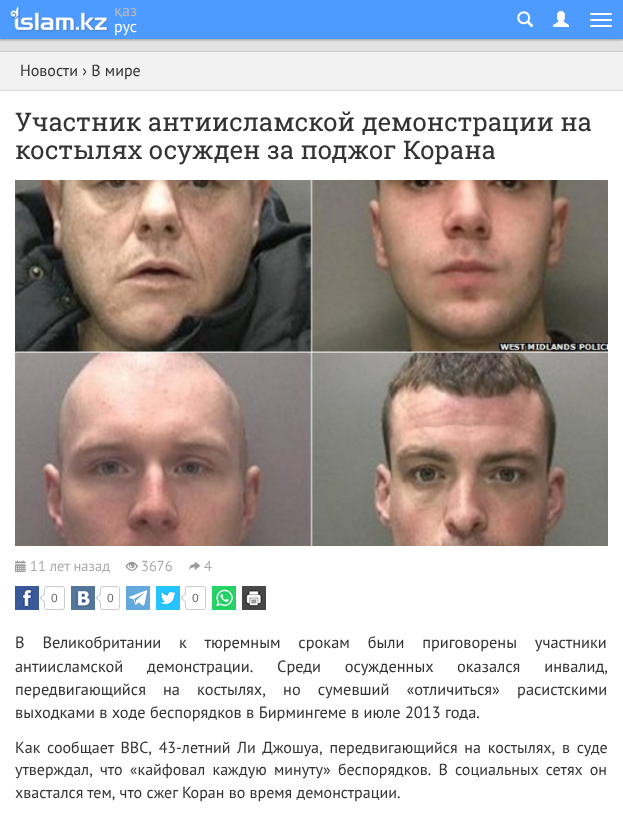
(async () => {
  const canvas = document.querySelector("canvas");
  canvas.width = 623;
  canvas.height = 825;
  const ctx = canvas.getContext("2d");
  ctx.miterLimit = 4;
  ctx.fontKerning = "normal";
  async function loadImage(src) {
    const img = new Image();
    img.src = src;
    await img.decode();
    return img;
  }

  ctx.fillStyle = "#e3e3e3";
  ctx.fillRect(0, 0, 623, 825);
  ctx.fillStyle = "#999999";
  ctx.filter = "blur(1px)";
  ctx.beginPath();
  ctx.rect(0, 1, 623, 39);
  ctx.fill();
  ctx.filter = "none";
  ctx.fillStyle = "#4e9bff";
  ctx.fillRect(0, 0, 623, 39);
  ctx.drawImage(await loadImage("img/1.png"), 10, 6, 98, 26);
  ctx.drawImage(await loadImage("img/2.png"), 517, 11, 17, 17);
  ctx.drawImage(await loadImage("img/3.png"), 553, 11, 16, 16);
  ctx.fillStyle = "#ffffff";
  ctx.beginPath();
  ctx.roundRect(590, 13, 22, 2, 1);
  ctx.fill();
  ctx.beginPath();
  ctx.roundRect(590, 19, 22, 2, 1);
  ctx.fill();
  ctx.beginPath();
  ctx.roundRect(590, 25, 22, 2, 1);
  ctx.fill();
  ctx.fillStyle = "#b3b3b3";
  ctx.filter = "blur(1px)";
  ctx.beginPath();
  ctx.rect(0, 52, 623, 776);
  ctx.fill();
  ctx.filter = "none";
  for (const [x, y, w, h, color] of [
    [0, 91, 623, 734, "#ffffff"],
    [0, 51, 623, 1, "#c9c9c9"],
    [0, 52, 623, 38, "#f2f2f2"],
    [0, 90, 623, 1, "#dddddd"],
  ]) {
    ctx.fillStyle = color;
    ctx.fillRect(x, y, w, h);
  }
  ctx.drawImage(await loadImage("img/4.png"), 15, 180, 593, 366);
  ctx.drawImage(await loadImage("img/5.png"), 15, 560, 11, 12);
  ctx.drawImage(await loadImage("img/6.png"), 125, 561, 13, 10);
  ctx.drawImage(await loadImage("img/7.png"), 189, 561, 12, 9);
  ctx.drawImage(await loadImage("img/8.png"), 15, 586, 24, 24);
  ctx.drawImage(await loadImage("img/9.png"), 48, 586, 17, 24);
  ctx.drawImage(await loadImage("img/10.png"), 40, 586, 8, 24);
  ctx.drawImage(await loadImage("img/11.png"), 71, 586, 24, 24);
  ctx.drawImage(await loadImage("img/12.png"), 104, 586, 16, 24);
  ctx.drawImage(await loadImage("img/10.png"), 96, 586, 8, 24);
  ctx.drawImage(await loadImage("img/13.png"), 126, 586, 24, 24);
  ctx.drawImage(await loadImage("img/14.png"), 156, 586, 24, 24);
  ctx.drawImage(await loadImage("img/9.png"), 189, 586, 17, 24);
  ctx.drawImage(await loadImage("img/10.png"), 181, 586, 8, 24);
  ctx.drawImage(await loadImage("img/15.png"), 212, 586, 24, 24);
  ctx.drawImage(await loadImage("img/16.png"), 242, 586, 24, 24);
  ctx.font = "16px PT Sans";
  ctx.fillStyle = "#bbbbbb";
  ctx.fillText("қаз", 114, 16);
  ctx.fillStyle = "#ffffff";
  ctx.fillText("рус", 114, 32);
  ctx.fillStyle = "#333333";
  ctx.fillText("Новости › В мире", 20, 76);
  ctx.font = "25.6px Roboto Slab";
  ctx.fillText("Участник антиисламской демонстрации на", 15, 131);
  ctx.fillText("костылях осужден за поджог Корана", 15, 159);
  ctx.font = "14.5px PT Sans";
  ctx.fillStyle = "#aaaaaa";
  for (const [text, x, y] of [
    ["11 лет назад", 30, 571],
    ["3676", 141, 571],
    ["4", 204, 571],
  ]) {
    ctx.fillText(text, x, y);
  }
  ctx.font = "12px Liberation Sans";
  ctx.fillStyle = "#666666";
  for (const [text, x, y] of [
    ["0", 51, 602],
    ["0", 107, 602],
    ["0", 192, 602],
  ]) {
    ctx.fillText(text, x, y);
  }
  ctx.wordSpacing = "13.5px";
  ctx.font = "16.35px PT Sans";
  ctx.fillStyle = "#333333";
  ctx.fillText("В Великобритании к тюремным срокам были приговорены участники", 15, 648);
  ctx.wordSpacing = "19.5px";
  ctx.fillText("антиисламской демонстрации. Среди осужденных оказался инвалид,", 15, 672);
  ctx.wordSpacing = "12.75px";
  ctx.fillText("передвигающийся на костылях, но сумевший «отличиться» расистскими", 15, 695);
  ctx.wordSpacing = "0px";
  ctx.fillText("выходками в ходе беспорядков в Бирмингеме в июле 2013 года.", 15, 718);
  ctx.wordSpacing = "2.5px";
  ctx.font = "16px PT Sans";
  ctx.fillText("Как сообщает BBC, 43-летний Ли Джошуа, передвигающийся на костылях, в суде", 15, 753);
  ctx.wordSpacing = "3px";
  ctx.fillText("утверждал, что «кайфовал каждую минуту» беспорядков. В социальных сетях он", 15, 775);
  ctx.wordSpacing = "0px";
  ctx.fillText("хвастался тем, что сжег Коран во время демонстрации.", 15, 798);
})();
